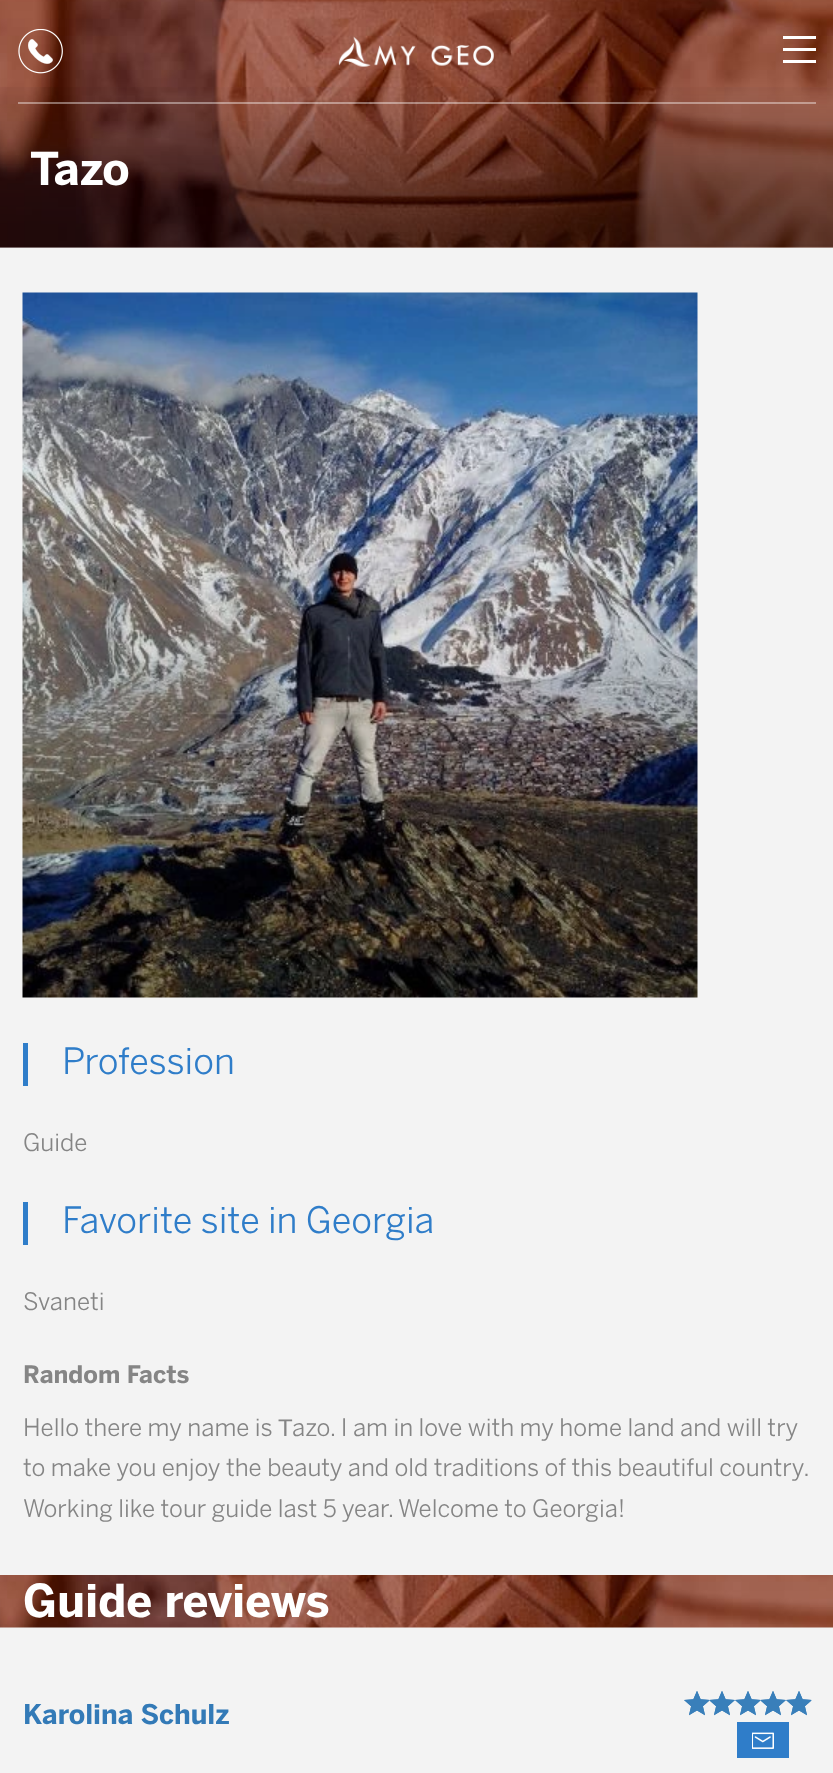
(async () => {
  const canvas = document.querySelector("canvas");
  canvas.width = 833;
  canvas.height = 1773;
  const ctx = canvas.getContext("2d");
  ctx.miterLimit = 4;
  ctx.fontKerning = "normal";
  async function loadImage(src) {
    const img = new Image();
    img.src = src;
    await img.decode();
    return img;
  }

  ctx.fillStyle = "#f3f3f3";
  ctx.fillRect(0, 0, 833, 1773);
  ctx.drawImage(await loadImage("img/3.png"), 0, 0, 833, 248);
  ctx.drawImage(await loadImage("img/4.png"), 0, 87, 833, 161);
  ctx.fillStyle = "rgba(255, 255, 255, 0.4)";
  ctx.fillRect(18, 102, 798, 2);
  ctx.drawImage(await loadImage("img/1.png"), 18, 29, 45, 45);
  ctx.drawImage(await loadImage("img/2.png"), 338, 36, 156, 31);
  for (const [x, y, w, h, color] of [
    [783, 36, 33, 3, "#ffffff"],
    [783, 48, 33, 3, "#ffffff"],
    [783, 60, 33, 3, "#ffffff"],
  ]) {
    ctx.fillStyle = color;
    ctx.fillRect(x, y, w, h);
  }
  ctx.drawImage(await loadImage("img/5.png"), 22, 292, 676, 706);
  ctx.fillStyle = "#2f7dc9";
  ctx.fillRect(23, 1043, 5, 43);
  ctx.fillRect(23, 1202, 5, 43);
  ctx.drawImage(await loadImage("img/6.png"), 0, 1575, 833, 53);
  ctx.drawImage(await loadImage("img/7.png"), 684, 1691, 128, 25);
  ctx.drawImage(await loadImage("img/8.png"), 684, 1691, 128, 25);
  ctx.fillRect(737, 1722, 52, 36);
  ctx.drawImage(await loadImage("img/9.png"), 752, 1732, 22, 17);
  ctx.font = "bold 45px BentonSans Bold";
  ctx.fillStyle = "#ffffff";
  ctx.fillText("Tazo", 30, 185);
  ctx.font = "36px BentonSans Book";
  ctx.fillStyle = "#2f7dc9";
  ctx.fillText("Profession", 62, 1074);
  ctx.font = "24px BentonSans Book";
  ctx.fillStyle = "#858585";
  ctx.fillText("Guide", 23, 1151);
  ctx.font = "36px BentonSans Book";
  ctx.fillStyle = "#2f7dc9";
  ctx.fillText("Favorite site in Georgia", 62, 1233);
  ctx.font = "24px BentonSans Book";
  ctx.fillStyle = "#858585";
  ctx.fillText("Svaneti", 23, 1310);
  ctx.font = "bold 24px BentonSans Bold";
  ctx.fillText("Random Facts", 23, 1383);
  ctx.font = "24px BentonSans Book";
  ctx.fillText("Hello there my name is", 23, 1436);
  ctx.font = "24px Liberation Sans";
  ctx.fillText("Т", 278, 1436);
  ctx.font = "24px BentonSans Book";
  for (const [text, x, y] of [
    ["azo. I am in love with my home land and will try", 292, 1436],
    ["to make you enjoy the beauty and old traditions of this beautiful country.", 23, 1476],
    ["Working like tour guide last 5 year. Welcome to Georgia!", 23, 1517],
  ]) {
    ctx.fillText(text, x, y);
  }
  ctx.font = "bold 45px BentonSans Bold";
  ctx.fillStyle = "#ffffff";
  ctx.fillText("Guide reviews", 23, 1617);
  ctx.font = "bold 27px BentonSans Bold";
  ctx.fillStyle = "#337ab7";
  ctx.fillText("Karolina Schulz", 23, 1724);
})();
